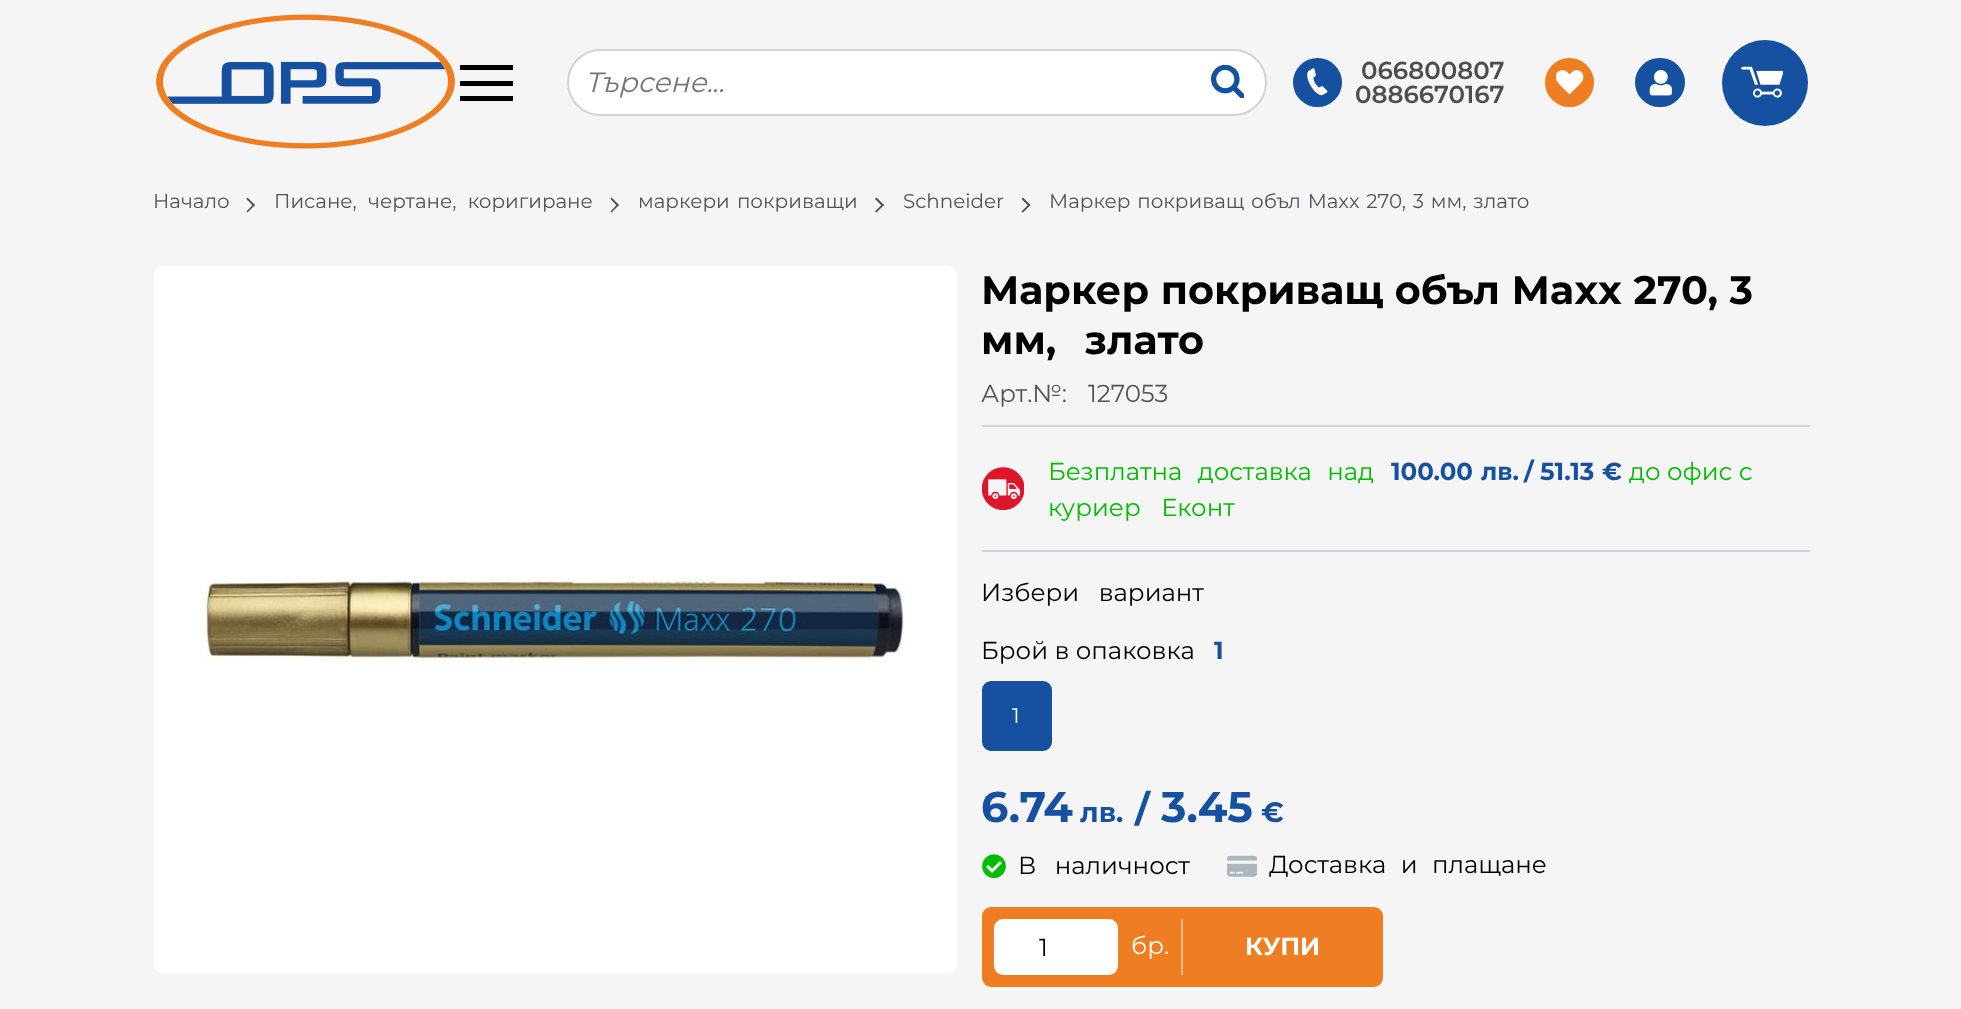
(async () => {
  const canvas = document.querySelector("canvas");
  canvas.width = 1961;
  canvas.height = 1009;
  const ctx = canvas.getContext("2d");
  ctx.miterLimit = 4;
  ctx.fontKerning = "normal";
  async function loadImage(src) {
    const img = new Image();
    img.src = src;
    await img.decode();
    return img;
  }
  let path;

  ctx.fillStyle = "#f5f5f5";
  ctx.fillRect(0, 0, 1961, 1009);
  ctx.drawImage(await loadImage("img/1.png"), 156, 14, 299, 135);
  for (const [x, y, w, h, color] of [
    [460, 81, 53, 5, "#000000"],
    [460, 65, 53, 5, "#000000"],
    [460, 96, 53, 5, "#000000"],
  ]) {
    ctx.fillStyle = color;
    ctx.fillRect(x, y, w, h);
  }
  ctx.fillStyle = "#ffffff";
  ctx.beginPath();
  ctx.roundRect(568, 50, 698, 65, 32.5);
  ctx.fill();
  ctx.strokeStyle = "#ced4da";
  ctx.lineWidth = 2;
  ctx.stroke();
  ctx.drawImage(await loadImage("img/2.png"), 1211, 65, 33, 33);
  ctx.fillStyle = "#1550a1";
  ctx.beginPath();
  ctx.arc(1317.5, 82.5, 24.5, 0, Math.PI * 2);
  ctx.fill();
  ctx.drawImage(await loadImage("img/3.png"), 1307, 68, 21, 28);
  ctx.fillStyle = "#ef7e22";
  ctx.beginPath();
  ctx.arc(1569.5, 82.5, 24.5, 0, Math.PI * 2);
  ctx.fill();
  ctx.drawImage(await loadImage("img/4.png"), 1556, 70, 28, 25);
  ctx.fillStyle = "#1550a1";
  ctx.beginPath();
  ctx.roundRect(1635, 58, 50, 49, 24.5);
  ctx.fill();
  ctx.drawImage(await loadImage("img/5.png"), 1649, 70, 23, 26);
  ctx.beginPath();
  ctx.arc(1765, 83, 43, 0, Math.PI * 2);
  ctx.fill();
  ctx.drawImage(await loadImage("img/6.png"), 1741, 66, 42, 32);
  ctx.fillStyle = "#495057";
  path = new Path2D("M246.5 199L247.5 197.5L255 205L253.5 206.5Z");
  ctx.fill(path);
  path = new Path2D("M246.5 211.5L253.5 204L255 205L247.5 212.5Z");
  ctx.fill(path);
  path = new Path2D("M610.5 199L611.5 197.5L619 205L617.5 206.5Z");
  ctx.fill(path);
  path = new Path2D("M610.5 211.5L617.5 204L619 205L611.5 212.5Z");
  ctx.fill(path);
  path = new Path2D("M875 199L876.5 197.5L884 205L882.5 206.5Z");
  ctx.fill(path);
  path = new Path2D("M875 211.5L882.5 204L884 205L876.5 212.5Z");
  ctx.fill(path);
  path = new Path2D("M1021.5 199L1023 197.5L1030.5 205L1029 206.5Z");
  ctx.fill(path);
  path = new Path2D("M1021.5 211.5L1029 204L1030.5 205L1023 212.5Z");
  ctx.fill(path);
  ctx.fillStyle = "#ffffff";
  ctx.beginPath();
  ctx.roundRect(154, 266, 803, 707, 9);
  ctx.fill();
  ctx.drawImage(await loadImage("img/7.png"), 201, 576, 704, 86);
  ctx.fillStyle = "#ced4da";
  ctx.fillRect(982, 425, 828, 2);
  ctx.fillRect(982, 550, 828, 2);
  ctx.drawImage(await loadImage("img/8.png"), 982, 467, 42, 43);
  ctx.fillStyle = "#1550a1";
  ctx.beginPath();
  ctx.roundRect(983, 682, 68, 68, 8);
  ctx.fill();
  ctx.strokeStyle = "#1550a1";
  ctx.stroke();
  ctx.drawImage(await loadImage("img/9.png"), 982, 854, 24, 25);
  ctx.drawImage(await loadImage("img/10.png"), 1227, 855, 30, 22);
  ctx.fillStyle = "#ef7e22";
  ctx.beginPath();
  ctx.roundRect(982, 907, 401, 80, 9);
  ctx.fill();
  ctx.fillStyle = "#ffffff";
  ctx.beginPath();
  ctx.roundRect(994, 919, 124, 56, 9);
  ctx.fill();
  ctx.fillStyle = "#f7bf91";
  ctx.fillRect(1181, 919, 2, 56);
  ctx.font = "italic 28px Montserrat";
  ctx.fillStyle = "#757575";
  ctx.fillText("Търсене...", 585, 92);
  ctx.font = "600 24.5px Montserrat";
  ctx.fillStyle = "#4d4d4d";
  ctx.fillText("066800807", 1361, 79);
  ctx.fillText("0886670167", 1355, 103);
  ctx.font = "19.9px Montserrat";
  ctx.fillStyle = "#4d545b";
  ctx.fillText("Начало", 153, 208);
  ctx.wordSpacing = "6px";
  ctx.fillText("Писане, чертане, коригиране", 274, 208);
  ctx.wordSpacing = "2px";
  ctx.fillText("маркери покриващи", 638, 208);
  ctx.wordSpacing = "0px";
  ctx.fillText("Schneider", 903, 208);
  ctx.wordSpacing = "1.5px";
  ctx.fillText("Маркер покриващ объл Maxx 270, 3 мм, злато", 1049, 208);
  ctx.wordSpacing = "0.5px";
  ctx.font = "bold 39.8px Montserrat";
  ctx.fillStyle = "#000000";
  ctx.fillText("Маркер покриващ объл Maxx 270, 3", 981, 304);
  ctx.wordSpacing = "17px";
  ctx.fillText("мм, злато", 981, 354);
  ctx.wordSpacing = "0px";
  ctx.font = "24.5px Montserrat";
  ctx.fillStyle = "#4d545b";
  ctx.fillText("Арт.№:", 981, 402);
  ctx.fillText("127053", 1088, 402);
  ctx.wordSpacing = "9px";
  ctx.fillStyle = "#00bb00";
  ctx.fillText("Безплатна доставка над", 1048, 480);
  ctx.wordSpacing = "0px";
  ctx.font = "bold 24.5px Montserrat";
  ctx.fillStyle = "#1550a1";
  for (const [text, x, y] of [
    ["100.00", 1391, 480],
    ["лв.", 1481, 480],
    ["/", 1524, 480],
    ["51.13", 1540, 480],
    ["€", 1602, 480],
  ]) {
    ctx.fillText(text, x, y);
  }
  ctx.font = "24.5px Montserrat";
  ctx.fillStyle = "#00bb00";
  ctx.fillText("до офис с", 1629, 480);
  ctx.wordSpacing = "14px";
  ctx.fillText("куриер Еконт", 1048, 516);
  ctx.wordSpacing = "13px";
  ctx.fillStyle = "#000000";
  ctx.fillText("Избери вариант", 981, 601);
  ctx.wordSpacing = "0px";
  ctx.fillText("Брой в опаковка", 981, 659);
  ctx.font = "bold 24.5px Montserrat";
  ctx.fillStyle = "#1550a1";
  ctx.fillText("1", 1214, 659);
  ctx.font = "21px Montserrat";
  ctx.fillStyle = "#f8f9fa";
  ctx.fillText("1", 1012, 723);
  ctx.font = "bold 43px Montserrat";
  ctx.fillStyle = "#1550a1";
  ctx.fillText("6.74", 981, 822);
  ctx.font = "bold 28px Montserrat";
  ctx.fillText("лв.", 1080, 822);
  ctx.font = "bold 37px Montserrat";
  ctx.fillText("/", 1135, 822);
  ctx.font = "bold 43px Montserrat";
  ctx.fillText("3.45", 1161, 822);
  ctx.font = "bold 28px Montserrat";
  ctx.fillText("€", 1261, 822);
  ctx.wordSpacing = "12px";
  ctx.font = "24.5px Montserrat";
  ctx.fillStyle = "#000000";
  ctx.fillText("В наличност", 1018, 874);
  ctx.wordSpacing = "8px";
  ctx.fillText("Доставка и плащане", 1269, 873);
  ctx.wordSpacing = "0px";
  ctx.fillText("1", 1039, 956);
  ctx.fillStyle = "#ffffff";
  ctx.fillText("бр.", 1131, 954);
  ctx.font = "bold 24.5px Montserrat";
  ctx.fillText("КУПИ", 1245, 955);
})();
